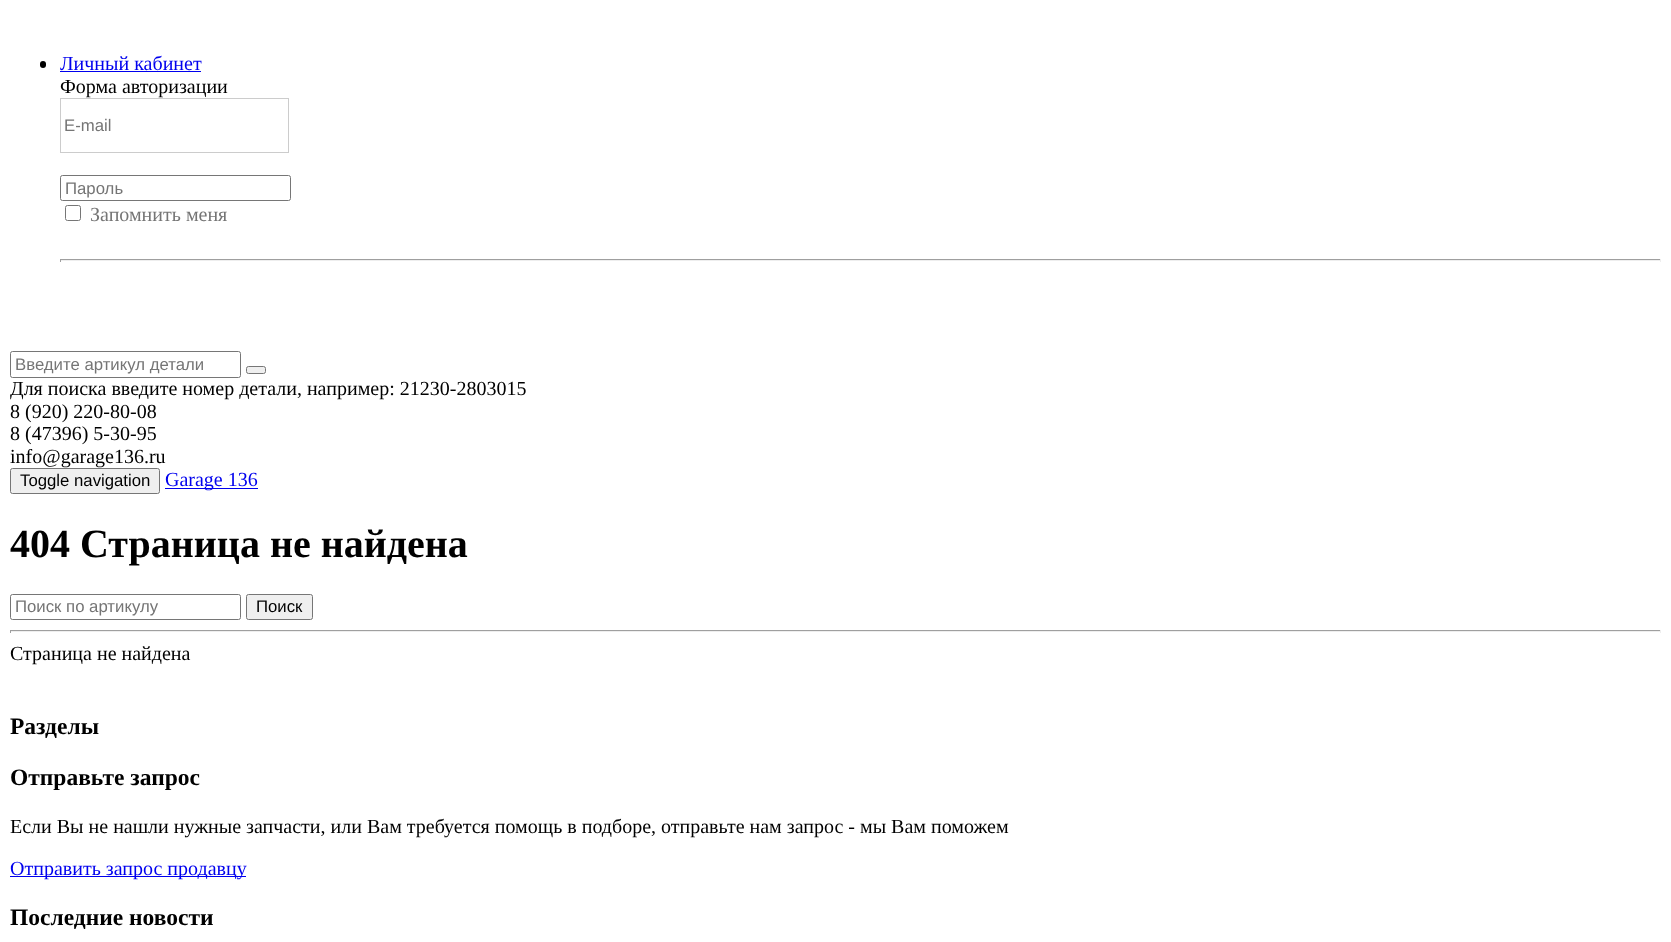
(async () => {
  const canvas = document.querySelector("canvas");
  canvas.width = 1671;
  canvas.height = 942;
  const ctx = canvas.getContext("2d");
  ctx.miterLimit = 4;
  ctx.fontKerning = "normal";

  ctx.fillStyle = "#ffffff";
  ctx.fillRect(0, 0, 1671, 942);
  ctx.fillStyle = "#000000";
  ctx.beginPath();
  ctx.roundRect(40, 61, 6, 7, 3);
  ctx.fill();
  ctx.fillStyle = "#0000ee";
  ctx.fillRect(60, 71, 141, 1);
  ctx.strokeStyle = "#cccccc";
  ctx.strokeRect(60.5, 98.5, 228, 54);
  ctx.beginPath();
  ctx.roundRect(60.5, 175.5, 230, 25, 2);
  ctx.strokeStyle = "#767676";
  ctx.stroke();
  ctx.beginPath();
  ctx.roundRect(65.5, 205.5, 15, 15, 2);
  ctx.stroke();
  for (const [x, y, w, h, color] of [
    [60, 259, 1601, 1, "#9f9f9f"],
    [1660, 259, 1, 3, "#eeeeee"],
    [60, 260, 1601, 1, "#eeeeee"],
    [60, 259, 1, 3, "#9f9f9f"],
  ]) {
    ctx.fillStyle = color;
    ctx.fillRect(x, y, w, h);
  }
  ctx.beginPath();
  ctx.roundRect(10.5, 351.5, 230, 26, 2);
  ctx.stroke();
  ctx.fillStyle = "#efefef";
  ctx.beginPath();
  ctx.roundRect(246.5, 366.5, 19, 7, 2);
  ctx.fill();
  ctx.stroke();
  ctx.beginPath();
  ctx.roundRect(10.5, 468.5, 149, 25, 2);
  ctx.fill();
  ctx.stroke();
  ctx.fillStyle = "#0000ee";
  ctx.fillRect(165, 488, 93, 1);
  ctx.beginPath();
  ctx.roundRect(10.5, 594.5, 230, 25, 2);
  ctx.stroke();
  ctx.fillStyle = "#efefef";
  ctx.beginPath();
  ctx.roundRect(246.5, 594.5, 66, 25, 2);
  ctx.fill();
  ctx.stroke();
  for (const [x, y, w, h, color] of [
    [10, 630, 1651, 1, "#9f9f9f"],
    [1660, 630, 1, 3, "#eeeeee"],
    [10, 631, 1651, 1, "#eeeeee"],
    [10, 630, 1, 3, "#9f9f9f"],
    [10, 876, 236, 1, "#0000ee"],
  ]) {
    ctx.fillStyle = color;
    ctx.fillRect(x, y, w, h);
  }
  ctx.font = "20px Liberation Serif";
  ctx.fillText("Личный кабинет", 60, 70);
  ctx.fillStyle = "#000000";
  ctx.fillText("Форма авторизации", 60, 93);
  ctx.font = "16.75px Liberation Sans";
  ctx.fillStyle = "#757575";
  ctx.fillText("E-mail", 64, 131);
  ctx.fillText("Пароль", 65, 194);
  ctx.font = "20px Liberation Serif";
  ctx.fillText("Запомнить меня", 90, 221);
  ctx.font = "16.75px Liberation Sans";
  ctx.fillText("Введите артикул детали", 15, 370);
  ctx.font = "20px Liberation Serif";
  ctx.fillStyle = "#000000";
  for (const [text, x, y] of [
    ["Для поиска введите номер детали, например: 21230-2803015", 10, 395],
    ["8 (920) 220-80-08", 10, 418],
    ["8 (47396) 5-30-95", 10, 440],
    ["info@garage136.ru", 10, 463],
  ]) {
    ctx.fillText(text, x, y);
  }
  ctx.font = "16.75px Liberation Sans";
  ctx.fillText("Toggle navigation", 20, 486);
  ctx.font = "20px Liberation Serif";
  ctx.fillStyle = "#0000ee";
  ctx.fillText("Garage 136", 165, 486);
  ctx.font = "bold 40px Liberation Serif";
  ctx.fillStyle = "#000000";
  ctx.fillText("404 Страница не найдена", 10, 557);
  ctx.font = "16.75px Liberation Sans";
  ctx.fillStyle = "#757575";
  ctx.fillText("Поиск по артикулу", 15, 612);
  ctx.fillStyle = "#000000";
  ctx.fillText("Поиск", 256, 612);
  ctx.font = "20px Liberation Serif";
  ctx.fillText("Страница не найдена", 10, 660);
  ctx.font = "bold 23.5px Liberation Serif";
  ctx.fillText("Разделы", 10, 734);
  ctx.fillText("Отправьте запрос", 10, 785);
  ctx.font = "20px Liberation Serif";
  ctx.fillText("Если Вы не нашли нужные запчасти, или Вам требуется помощь в подборе, отправьте нам запрос - мы Вам поможем", 10, 833);
  ctx.fillStyle = "#0000ee";
  ctx.fillText("Отправить запрос продавцу", 10, 875);
  ctx.font = "bold 23.5px Liberation Serif";
  ctx.fillStyle = "#000000";
  ctx.fillText("Последние новости", 10, 925);
})();
